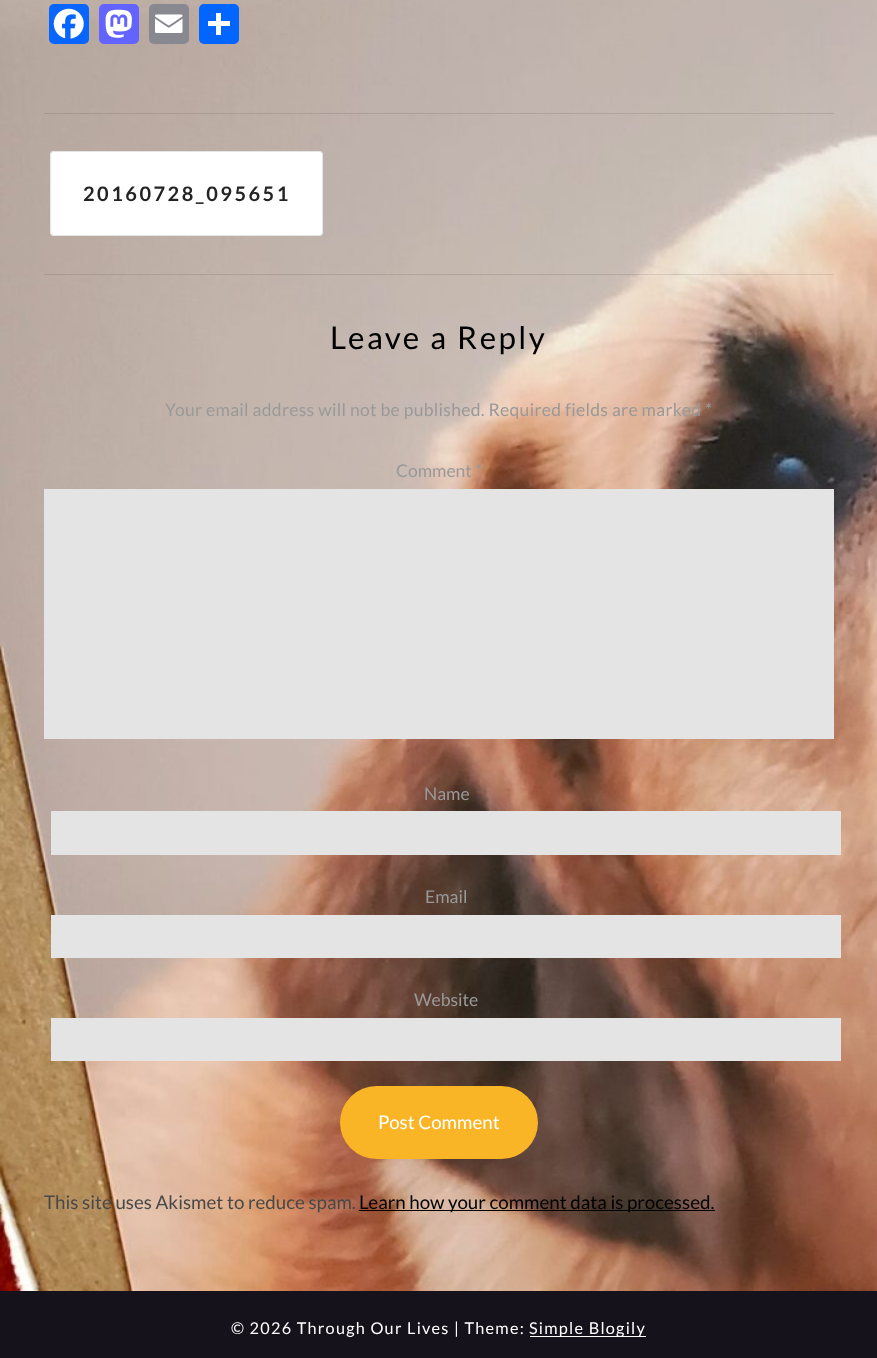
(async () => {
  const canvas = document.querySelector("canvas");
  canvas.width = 877;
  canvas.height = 1358;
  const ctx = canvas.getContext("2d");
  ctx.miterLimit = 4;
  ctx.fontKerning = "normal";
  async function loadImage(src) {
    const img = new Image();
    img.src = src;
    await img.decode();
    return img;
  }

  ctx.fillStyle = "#ffffff";
  ctx.fillRect(0, 0, 877, 1358);
  ctx.drawImage(await loadImage("img/1.png"), 0, 0, 877, 1291);
  ctx.fillStyle = "#0866ff";
  ctx.beginPath();
  ctx.roundRect(49, 4, 40, 40, 5);
  ctx.fill();
  ctx.drawImage(await loadImage("img/2.png"), 53, 8, 31, 31);
  ctx.fillStyle = "#6364ff";
  ctx.beginPath();
  ctx.roundRect(99, 4, 40, 40, 5);
  ctx.fill();
  ctx.drawImage(await loadImage("img/3.png"), 105, 9, 27, 29);
  ctx.fillStyle = "#888990";
  ctx.beginPath();
  ctx.roundRect(149, 4, 40, 40, 5);
  ctx.fill();
  ctx.drawImage(await loadImage("img/4.png"), 155, 14, 28, 19);
  ctx.fillStyle = "#0166ff";
  ctx.beginPath();
  ctx.roundRect(199, 4, 40, 40, 5);
  ctx.fill();
  for (const [x, y, w, h, color] of [
    [216, 13, 5, 22, "#ffffff"],
    [208, 21, 22, 5, "#ffffff"],
    [44, 113, 790, 1, "rgba(0, 0, 0, 0.1)"],
    [44, 274, 790, 1, "rgba(0, 0, 0, 0.1)"],
  ]) {
    ctx.fillStyle = color;
    ctx.fillRect(x, y, w, h);
  }
  ctx.fillStyle = "#ffffff";
  ctx.beginPath();
  ctx.roundRect(50, 151, 273, 85, 4);
  ctx.fill();
  ctx.beginPath();
  ctx.roundRect(50.5, 151.5, 272, 84, 3.5);
  ctx.strokeStyle = "rgba(0, 0, 0, 0.1)";
  ctx.stroke();
  for (const [x, y, w, h, color] of [
    [44, 489, 790, 250, "#e4e4e4"],
    [51, 811, 790, 44, "#e4e4e4"],
    [51, 915, 790, 43, "#e4e4e4"],
    [51, 1018, 790, 43, "#e4e4e4"],
  ]) {
    ctx.fillStyle = color;
    ctx.fillRect(x, y, w, h);
  }
  ctx.fillStyle = "#fab526";
  ctx.beginPath();
  ctx.roundRect(340, 1086, 198, 73, 36.5);
  ctx.fill();
  for (const [x, y, w, h, color] of [
    [359, 1210, 356, 1, "#000000"],
    [0, 1291, 877, 67, "#15121c"],
    [530, 1336, 116, 1, "#ffffff"],
  ]) {
    ctx.fillStyle = color;
    ctx.fillRect(x, y, w, h);
  }
  ctx.letterSpacing = "2.5px";
  ctx.font = "bold 20px Lato";
  ctx.fillStyle = "#242424";
  ctx.fillText("20160728_095651", 83, 201);
  ctx.font = "31.25px Lato";
  ctx.fillStyle = "#000000";
  ctx.fillText("Leave a Reply", 330, 349);
  ctx.letterSpacing = "0.3px";
  ctx.font = "17.5px Lato";
  ctx.fillStyle = "#999999";
  ctx.fillText("Your email address will not be published. Required fields are marked *", 165, 416);
  ctx.letterSpacing = "0px";
  for (const [text, x, y] of [
    ["Comment *", 396, 477],
    ["Name", 424, 800],
    ["Email", 425, 903],
    ["Website", 414, 1006],
  ]) {
    ctx.fillText(text, x, y);
  }
  ctx.font = "18.75px Lato";
  ctx.fillStyle = "#ffffff";
  ctx.fillText("Post Comment", 378, 1129);
  ctx.fillStyle = "#484848";
  ctx.fillText("This site uses Akismet to reduce spam.", 44, 1209);
  ctx.fillStyle = "#000000";
  ctx.fillText("Learn how your comment data is processed.", 359, 1209);
  ctx.letterSpacing = "1.25px";
  ctx.font = "16.25px Lato";
  ctx.fillStyle = "#ffffff";
  ctx.fillText("© 2026 Through Our Lives | Theme:", 231, 1334);
  ctx.fillText("Simple Blogily", 529, 1334);
})();
